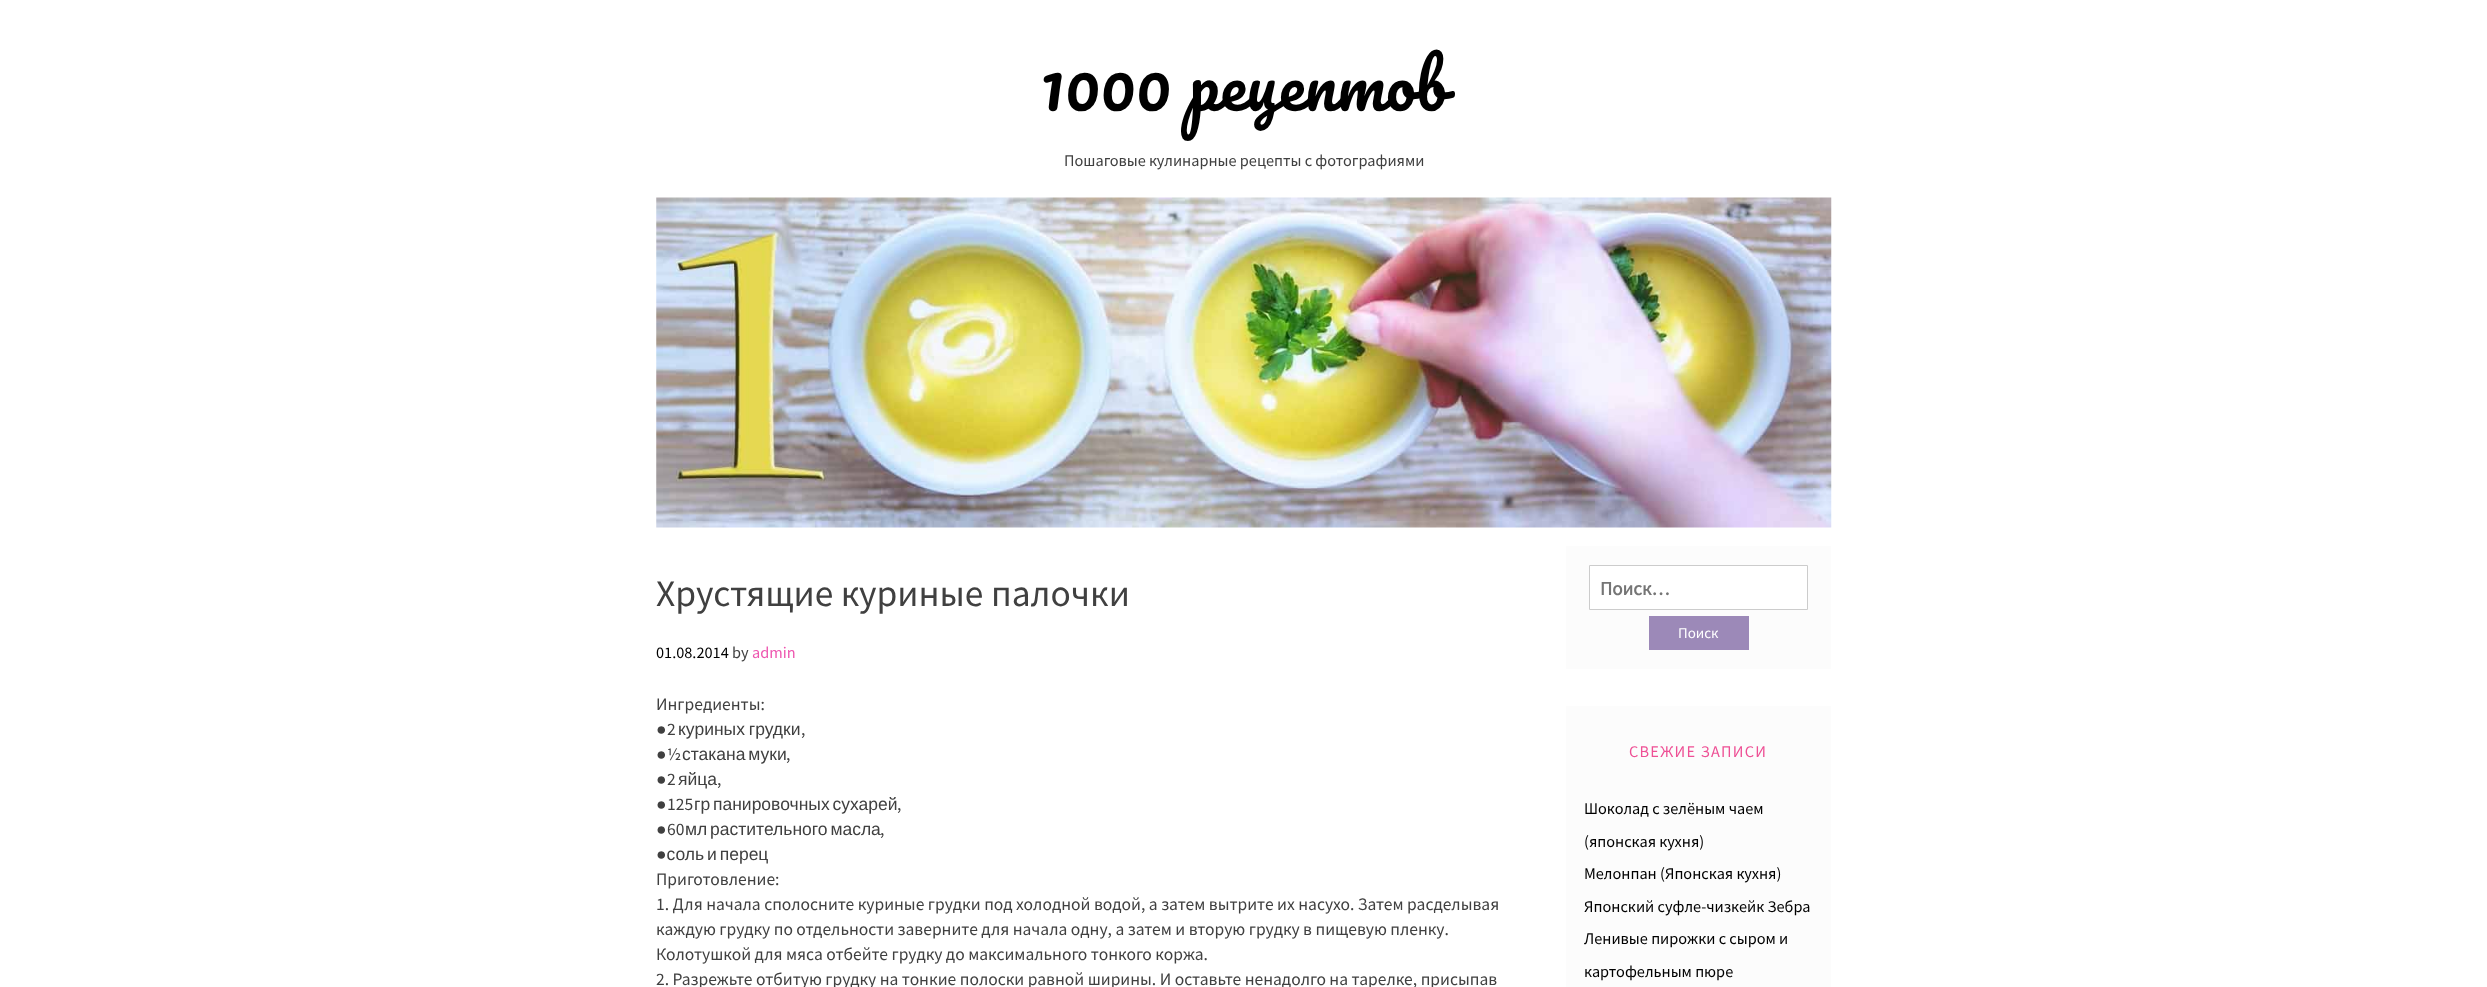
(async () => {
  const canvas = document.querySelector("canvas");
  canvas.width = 2487;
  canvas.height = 987;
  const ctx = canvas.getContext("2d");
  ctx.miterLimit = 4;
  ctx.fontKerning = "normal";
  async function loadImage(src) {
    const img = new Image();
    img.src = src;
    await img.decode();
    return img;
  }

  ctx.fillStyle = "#ffffff";
  ctx.fillRect(0, 0, 2487, 987);
  ctx.drawImage(await loadImage("img/1.png"), 656, 197, 1176, 331);
  ctx.fillStyle = "#fcfcfc";
  ctx.fillRect(1566, 546, 265, 123);
  ctx.fillStyle = "#ffffff";
  ctx.beginPath();
  ctx.rect(1589.5, 565.5, 218, 44);
  ctx.fill();
  ctx.strokeStyle = "#cccccc";
  ctx.stroke();
  ctx.fillStyle = "#9c89b8";
  ctx.fillRect(1649, 616, 100, 34);
  ctx.fillStyle = "#fcfcfc";
  ctx.fillRect(1566, 706, 265, 281);
  ctx.font = "65.5px Pacifico";
  ctx.fillStyle = "#000000";
  ctx.fillText("1000 рецептов", 1040, 111);
  ctx.font = "16.25px Source Sans Pro";
  ctx.fillStyle = "#404040";
  ctx.fillText("Пошаговые кулинарные рецепты с фотографиями", 1064, 166);
  ctx.font = "37.5px Source Sans Pro";
  ctx.fillText("Хрустящие куриные палочки", 656, 606);
  ctx.font = "16.25px Source Sans Pro";
  ctx.fillStyle = "#000000";
  ctx.fillText("01.08.2014", 656, 658);
  ctx.fillStyle = "#404040";
  ctx.fillText("by", 732, 658);
  ctx.fillStyle = "#ee55af";
  ctx.fillText("admin", 752, 658);
  ctx.font = "17.5px Source Sans Pro";
  ctx.fillStyle = "#404040";
  ctx.fillText("Ингредиенты:", 656, 710);
  ctx.font = "17.5px Liberation Sans";
  ctx.fillText("●", 656, 735);
  ctx.font = "17.5px Source Sans Pro";
  ctx.fillText("2", 667, 735);
  ctx.wordSpacing = "-1px";
  ctx.font = "17.5px Liberation Sans";
  ctx.fillText("куриных грудки", 678, 735);
  ctx.wordSpacing = "0px";
  ctx.font = "17.5px Source Sans Pro";
  ctx.fillText(",", 801, 735);
  ctx.font = "17.5px Liberation Sans";
  ctx.fillText("●", 656, 760);
  ctx.font = "17.5px Source Sans Pro";
  ctx.fillText("½", 667, 760);
  ctx.wordSpacing = "-2px";
  ctx.font = "17.5px Liberation Sans";
  ctx.fillText("стакана муки", 682, 760);
  ctx.wordSpacing = "0px";
  ctx.font = "17.5px Source Sans Pro";
  ctx.fillText(",", 786, 760);
  ctx.font = "17.5px Liberation Sans";
  ctx.fillText("●", 656, 785);
  ctx.font = "17.5px Source Sans Pro";
  ctx.fillText("2", 667, 785);
  ctx.font = "17.5px Liberation Sans";
  ctx.fillText("яйца", 678, 785);
  ctx.font = "17.5px Source Sans Pro";
  ctx.fillText(",", 717, 785);
  ctx.font = "17.5px Liberation Sans";
  ctx.fillText("●", 656, 810);
  ctx.font = "17.5px Source Sans Pro";
  ctx.fillText("125", 667, 810);
  ctx.wordSpacing = "-2px";
  ctx.font = "17.5px Liberation Sans";
  ctx.fillText("гр панировочных сухарей", 694, 810);
  ctx.wordSpacing = "0px";
  ctx.font = "17.5px Source Sans Pro";
  ctx.fillText(",", 897, 810);
  ctx.font = "17.5px Liberation Sans";
  ctx.fillText("●", 656, 835);
  ctx.font = "17.5px Source Sans Pro";
  ctx.fillText("60", 667, 835);
  ctx.wordSpacing = "-2px";
  ctx.font = "17.5px Liberation Sans";
  ctx.fillText("мл растительного масла", 685, 835);
  ctx.wordSpacing = "0px";
  ctx.font = "17.5px Source Sans Pro";
  ctx.fillText(",", 880, 835);
  ctx.wordSpacing = "-2px";
  ctx.font = "17.5px Liberation Sans";
  ctx.fillText("●соль и перец", 656, 860);
  ctx.wordSpacing = "0px";
  ctx.font = "17.5px Source Sans Pro";
  for (const [text, x, y] of [
    ["Приготовление:", 656, 885],
    ["1. Для начала сполосните куриные грудки под холодной водой, а затем вытрите их насухо. Затем расделывая", 656, 910],
    ["каждую грудку по отдельности заверните для начала одну, а затем и вторую грудку в пищевую пленку.", 656, 935],
    ["Колотушкой для мяса отбейте грудку до максимального тонкого коржа.", 656, 960],
    ["2. Разрежьте отбитую грудку на тонкие полоски равной ширины. И оставьте ненадолго на тарелке, присыпав", 656, 985],
  ]) {
    ctx.fillText(text, x, y);
  }
  ctx.font = "bold 19px Source Sans Pro";
  ctx.fillStyle = "#757575";
  ctx.fillText("Поиск…", 1600, 595);
  ctx.font = "15px Source Sans Pro";
  ctx.fillStyle = "#ffffff";
  ctx.fillText("Поиск", 1678, 638);
  ctx.letterSpacing = "1.25px";
  ctx.font = "16.25px Source Sans Pro";
  ctx.fillStyle = "#ee5095";
  ctx.fillText("СВЕЖИЕ ЗАПИСИ", 1629, 757);
  ctx.letterSpacing = "0px";
  ctx.fillStyle = "#000000";
  for (const [text, x, y] of [
    ["Шоколад с зелёным чаем", 1584, 814],
    ["(японская кухня)", 1584, 847],
    ["Мелонпан (Японская кухня)", 1584, 879],
    ["Японский суфле-чизкейк Зебра", 1584, 912],
    ["Ленивые пирожки с сыром и", 1584, 944],
    ["картофельным пюре", 1584, 977],
  ]) {
    ctx.fillText(text, x, y);
  }
})();
